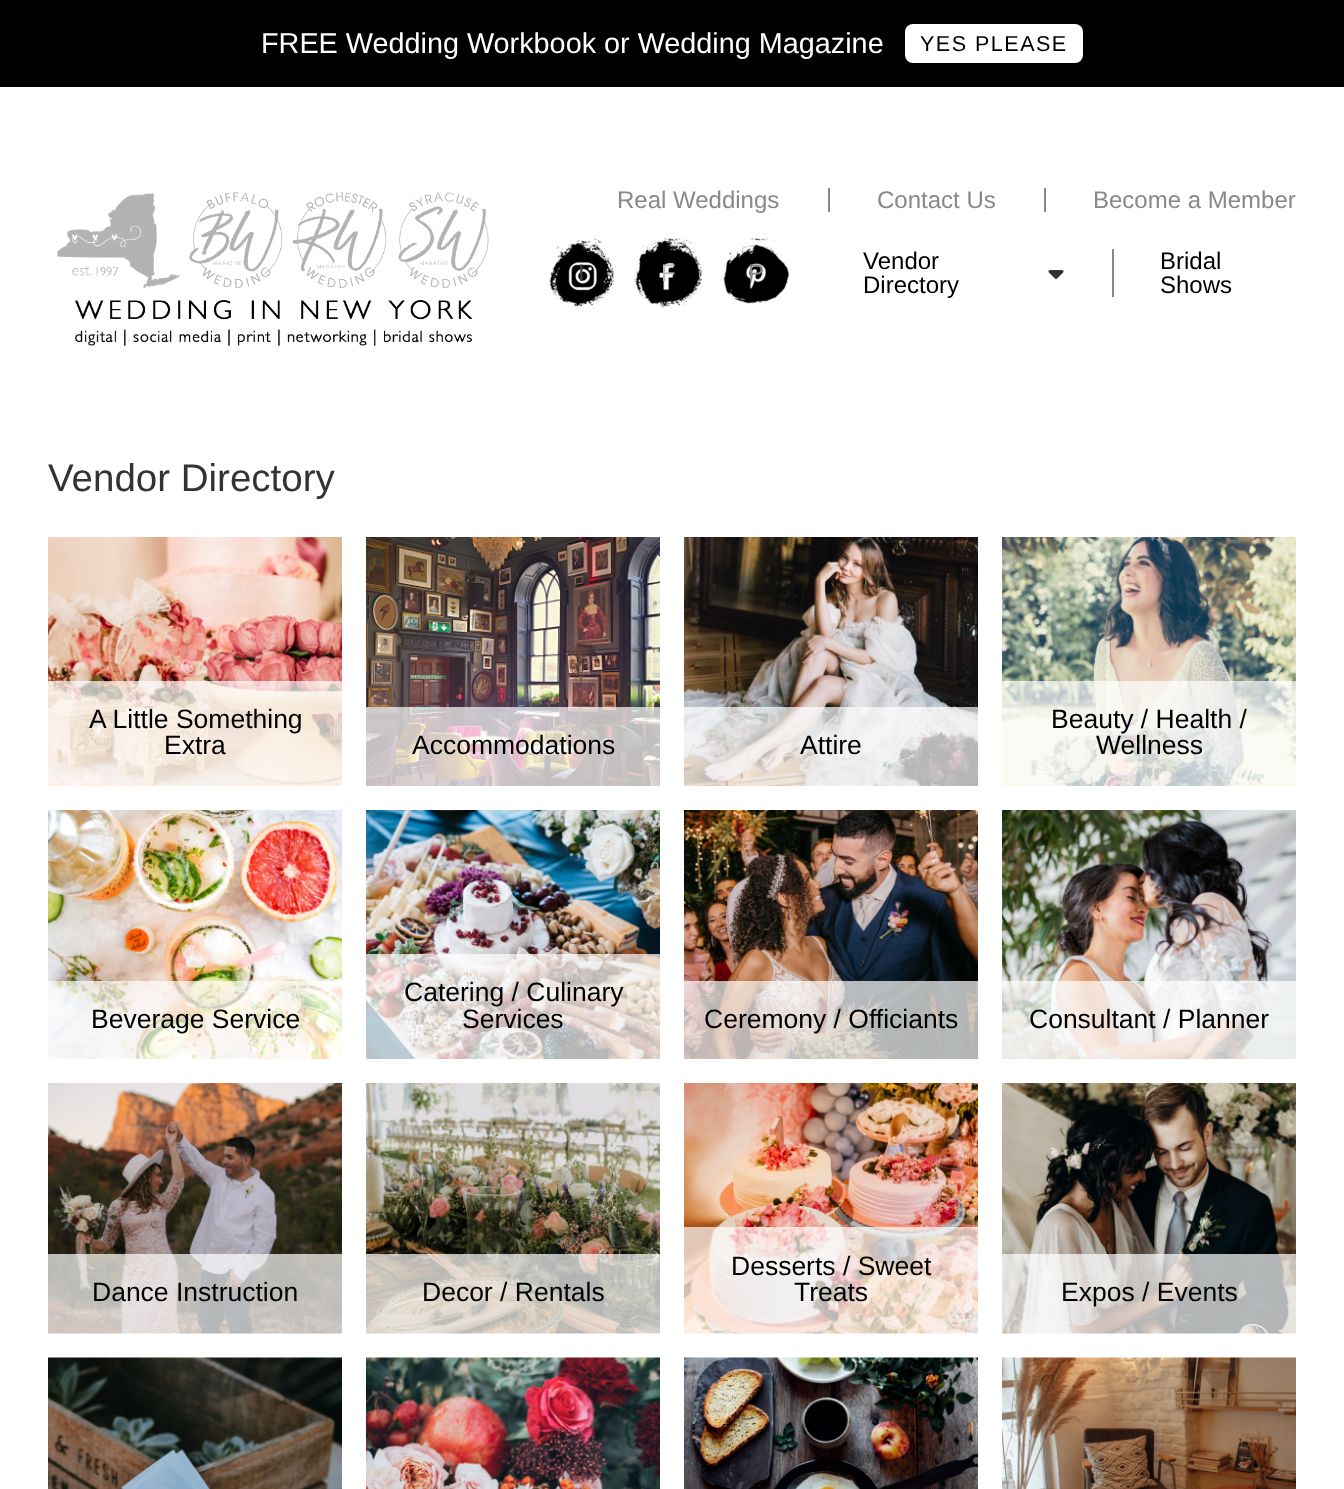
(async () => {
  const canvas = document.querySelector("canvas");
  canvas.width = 1344;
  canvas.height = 1489;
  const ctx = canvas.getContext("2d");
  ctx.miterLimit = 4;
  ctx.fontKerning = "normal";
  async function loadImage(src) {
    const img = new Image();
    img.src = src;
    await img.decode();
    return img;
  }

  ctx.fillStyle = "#000000";
  ctx.fillRect(0, 0, 1344, 1489);
  ctx.fillStyle = "#ffffff";
  ctx.beginPath();
  ctx.roundRect(905, 24, 178, 39, 8);
  ctx.fill();
  ctx.fillRect(0, 87, 1344, 1402);
  ctx.drawImage(await loadImage("img/1.png"), 57, 192, 432, 154);
  for (const [x, y, w, h, color] of [
    [57, 193, 123, 95, "rgba(255, 255, 255, 0.7)"],
    [189, 192, 93, 97, "rgba(255, 255, 255, 0.7)"],
    [292, 192, 95, 97, "rgba(255, 255, 255, 0.7)"],
    [398, 192, 91, 97, "rgba(255, 255, 255, 0.7)"],
    [828, 188, 2, 24, "#888888"],
    [1044, 188, 2, 24, "#888888"],
  ]) {
    ctx.fillStyle = color;
    ctx.fillRect(x, y, w, h);
  }
  ctx.drawImage(await loadImage("img/2.png"), 549, 238, 66, 69);
  ctx.drawImage(await loadImage("img/3.png"), 634, 238, 71, 70);
  ctx.drawImage(await loadImage("img/4.png"), 721, 238, 68, 66);
  ctx.drawImage(await loadImage("img/5.png"), 1048, 270, 16, 9);
  ctx.fillRect(1112, 249, 2, 48);
  ctx.drawImage(await loadImage("img/6.png"), 48, 537, 294, 249);
  ctx.fillStyle = "rgba(255, 255, 255, 0.7)";
  ctx.fillRect(48, 681, 294, 105);
  ctx.drawImage(await loadImage("img/7.png"), 366, 537, 294, 249);
  ctx.fillRect(366, 707, 294, 79);
  ctx.drawImage(await loadImage("img/8.png"), 684, 537, 294, 249);
  ctx.fillRect(684, 707, 294, 79);
  ctx.drawImage(await loadImage("img/9.png"), 1002, 537, 294, 249);
  ctx.fillRect(1002, 681, 294, 105);
  ctx.drawImage(await loadImage("img/10.png"), 48, 810, 294, 249);
  ctx.fillRect(48, 981, 294, 78);
  ctx.drawImage(await loadImage("img/11.png"), 366, 810, 294, 249);
  ctx.fillRect(366, 954, 294, 105);
  ctx.drawImage(await loadImage("img/12.png"), 684, 810, 294, 249);
  ctx.fillRect(684, 981, 294, 78);
  ctx.drawImage(await loadImage("img/13.png"), 1002, 810, 294, 249);
  ctx.fillRect(1002, 981, 294, 78);
  ctx.drawImage(await loadImage("img/14.png"), 48, 1083, 294, 251);
  ctx.fillRect(48, 1254, 294, 80);
  ctx.drawImage(await loadImage("img/15.png"), 366, 1083, 294, 251);
  ctx.fillRect(366, 1254, 294, 80);
  ctx.drawImage(await loadImage("img/16.png"), 684, 1083, 294, 251);
  ctx.fillRect(684, 1227, 294, 107);
  ctx.drawImage(await loadImage("img/17.png"), 1002, 1083, 294, 251);
  ctx.fillRect(1002, 1254, 294, 80);
  ctx.drawImage(await loadImage("img/18.png"), 48, 1357, 294, 132);
  ctx.drawImage(await loadImage("img/19.png"), 366, 1357, 294, 132);
  ctx.drawImage(await loadImage("img/20.png"), 684, 1357, 294, 132);
  ctx.drawImage(await loadImage("img/21.png"), 1002, 1357, 294, 132);
  ctx.font = "28.8px Liberation Sans";
  ctx.fillStyle = "#ffffff";
  ctx.fillText("FREE Wedding Workbook or Wedding Magazine", 261, 53);
  ctx.letterSpacing = "1.5px";
  ctx.font = "21.5px Liberation Sans";
  ctx.fillStyle = "#000000";
  ctx.fillText("YES PLEASE", 920, 51);
  ctx.letterSpacing = "0px";
  ctx.font = "24px Liberation Sans";
  ctx.fillStyle = "#888888";
  for (const [text, x, y] of [
    ["Real Weddings", 617, 208],
    ["Contact Us", 877, 208],
    ["Become a Member", 1093, 208],
  ]) {
    ctx.fillText(text, x, y);
  }
  ctx.fillStyle = "#404040";
  ctx.fillText("I", 578, 281);
  ctx.fillStyle = "#b9b9b9";
  ctx.fillText("F", 661, 281);
  ctx.fillStyle = "#888888";
  ctx.fillText("P", 748, 281);
  ctx.fillStyle = "#000000";
  for (const [text, x, y] of [
    ["Vendor", 863, 269],
    ["Directory", 863, 293],
    ["Bridal", 1160, 269],
    ["Shows", 1160, 293],
  ]) {
    ctx.fillText(text, x, y);
  }
  ctx.font = "38.5px Liberation Sans";
  ctx.fillStyle = "#333333";
  ctx.fillText("Vendor Directory", 48, 491);
  ctx.font = "26.5px Liberation Sans";
  ctx.fillStyle = "#000000";
  for (const [text, x, y] of [
    ["A Little Something", 89, 728],
    ["Extra", 164, 754],
    ["Accommodations", 412, 754],
    ["Attire", 800, 754],
    ["Beauty / Health /", 1051, 728],
    ["Wellness", 1096, 754],
    ["Beverage Service", 91, 1028],
    ["Catering / Culinary", 404, 1001],
    ["Services", 462, 1028],
    ["Ceremony / Officiants", 704, 1028],
    ["Consultant / Planner", 1029, 1028],
    ["Dance Instruction", 92, 1301],
    ["Decor / Rentals", 422, 1301],
    ["Desserts / Sweet", 731, 1275],
    ["Treats", 794, 1301],
    ["Expos / Events", 1061, 1301],
  ]) {
    ctx.fillText(text, x, y);
  }
})();
